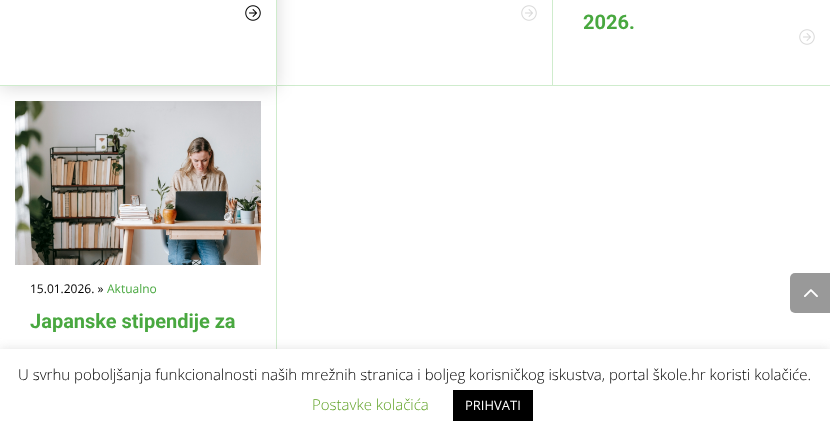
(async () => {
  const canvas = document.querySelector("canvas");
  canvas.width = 830;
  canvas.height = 438;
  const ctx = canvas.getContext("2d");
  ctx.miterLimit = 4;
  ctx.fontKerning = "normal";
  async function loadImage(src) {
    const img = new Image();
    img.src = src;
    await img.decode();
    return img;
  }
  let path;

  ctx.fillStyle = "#ffffff";
  ctx.fillRect(0, 0, 830, 438);
  for (const [x, y, w, h, color] of [
    [552, 0, 1, 86, "#cfeccd"],
    [277, 85, 553, 1, "#cfeccd"],
    [276, 86, 1, 263, "#cfeccd"],
  ]) {
    ctx.fillStyle = color;
    ctx.fillRect(x, y, w, h);
  }
  ctx.drawImage(await loadImage("img/3.png"), 15, 101, 246, 164);
  ctx.save();
  path = new Path2D("M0 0H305V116H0ZM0-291H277V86H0Z");
  ctx.clip(path, "evenodd");
  ctx.fillStyle = "rgba(0, 0, 0, 0.15)";
  ctx.filter = "blur(9px)";
  ctx.beginPath();
  ctx.rect(0, -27, 277, 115);
  ctx.fill();
  ctx.filter = "none";
  ctx.restore();
  ctx.fillRect(276, 0, 1, 86);
  ctx.fillRect(0, 85, 277, 1);
  ctx.drawImage(await loadImage("img/1.png"), 245, 5, 16, 16);
  ctx.drawImage(await loadImage("img/2.png"), 521, 5, 16, 16);
  ctx.drawImage(await loadImage("img/2.png"), 799, 29, 16, 16);
  ctx.fillStyle = "#999999";
  ctx.beginPath();
  ctx.roundRect(790, 273, 40, 40, [5, 0, 0, 5]);
  ctx.fill();
  ctx.drawImage(await loadImage("img/4.png"), 804, 289, 14, 8);
  ctx.fillStyle = "rgba(172, 171, 171, 0.3)";
  ctx.filter = "blur(5px)";
  ctx.beginPath();
  ctx.rect(0, 348, 830, 89);
  ctx.fill();
  ctx.filter = "none";
  ctx.fillStyle = "#ffffff";
  ctx.fillRect(0, 349, 830, 89);
  ctx.fillStyle = "#000000";
  ctx.fillRect(453, 390, 80, 31);
  ctx.font = "bold 20px Roboto";
  ctx.fillStyle = "#49a840";
  ctx.fillText("2026.", 583, 29);
  ctx.font = "12px Open Sans";
  ctx.fillStyle = "#000000";
  ctx.fillText("15.01.2026. »", 30, 293);
  ctx.fillStyle = "#49a840";
  ctx.fillText("Aktualno", 107, 293);
  ctx.font = "bold 20px Roboto";
  ctx.fillText("Japanske stipendije za", 30, 328);
  ctx.font = "300 15px Open Sans";
  ctx.fillStyle = "#000000";
  ctx.fillText("U svrhu poboljšanja funkcionalnosti naših mrežnih stranica i boljeg korisničkog iskustva, portal škole.hr koristi kolačiće.", 18, 380);
  ctx.fillStyle = "#62a329";
  ctx.fillText("Postavke kolačića", 312, 410);
  ctx.font = "13px Open Sans";
  ctx.fillStyle = "#ffffff";
  ctx.fillText("PRIHVATI", 465, 410);
})();
